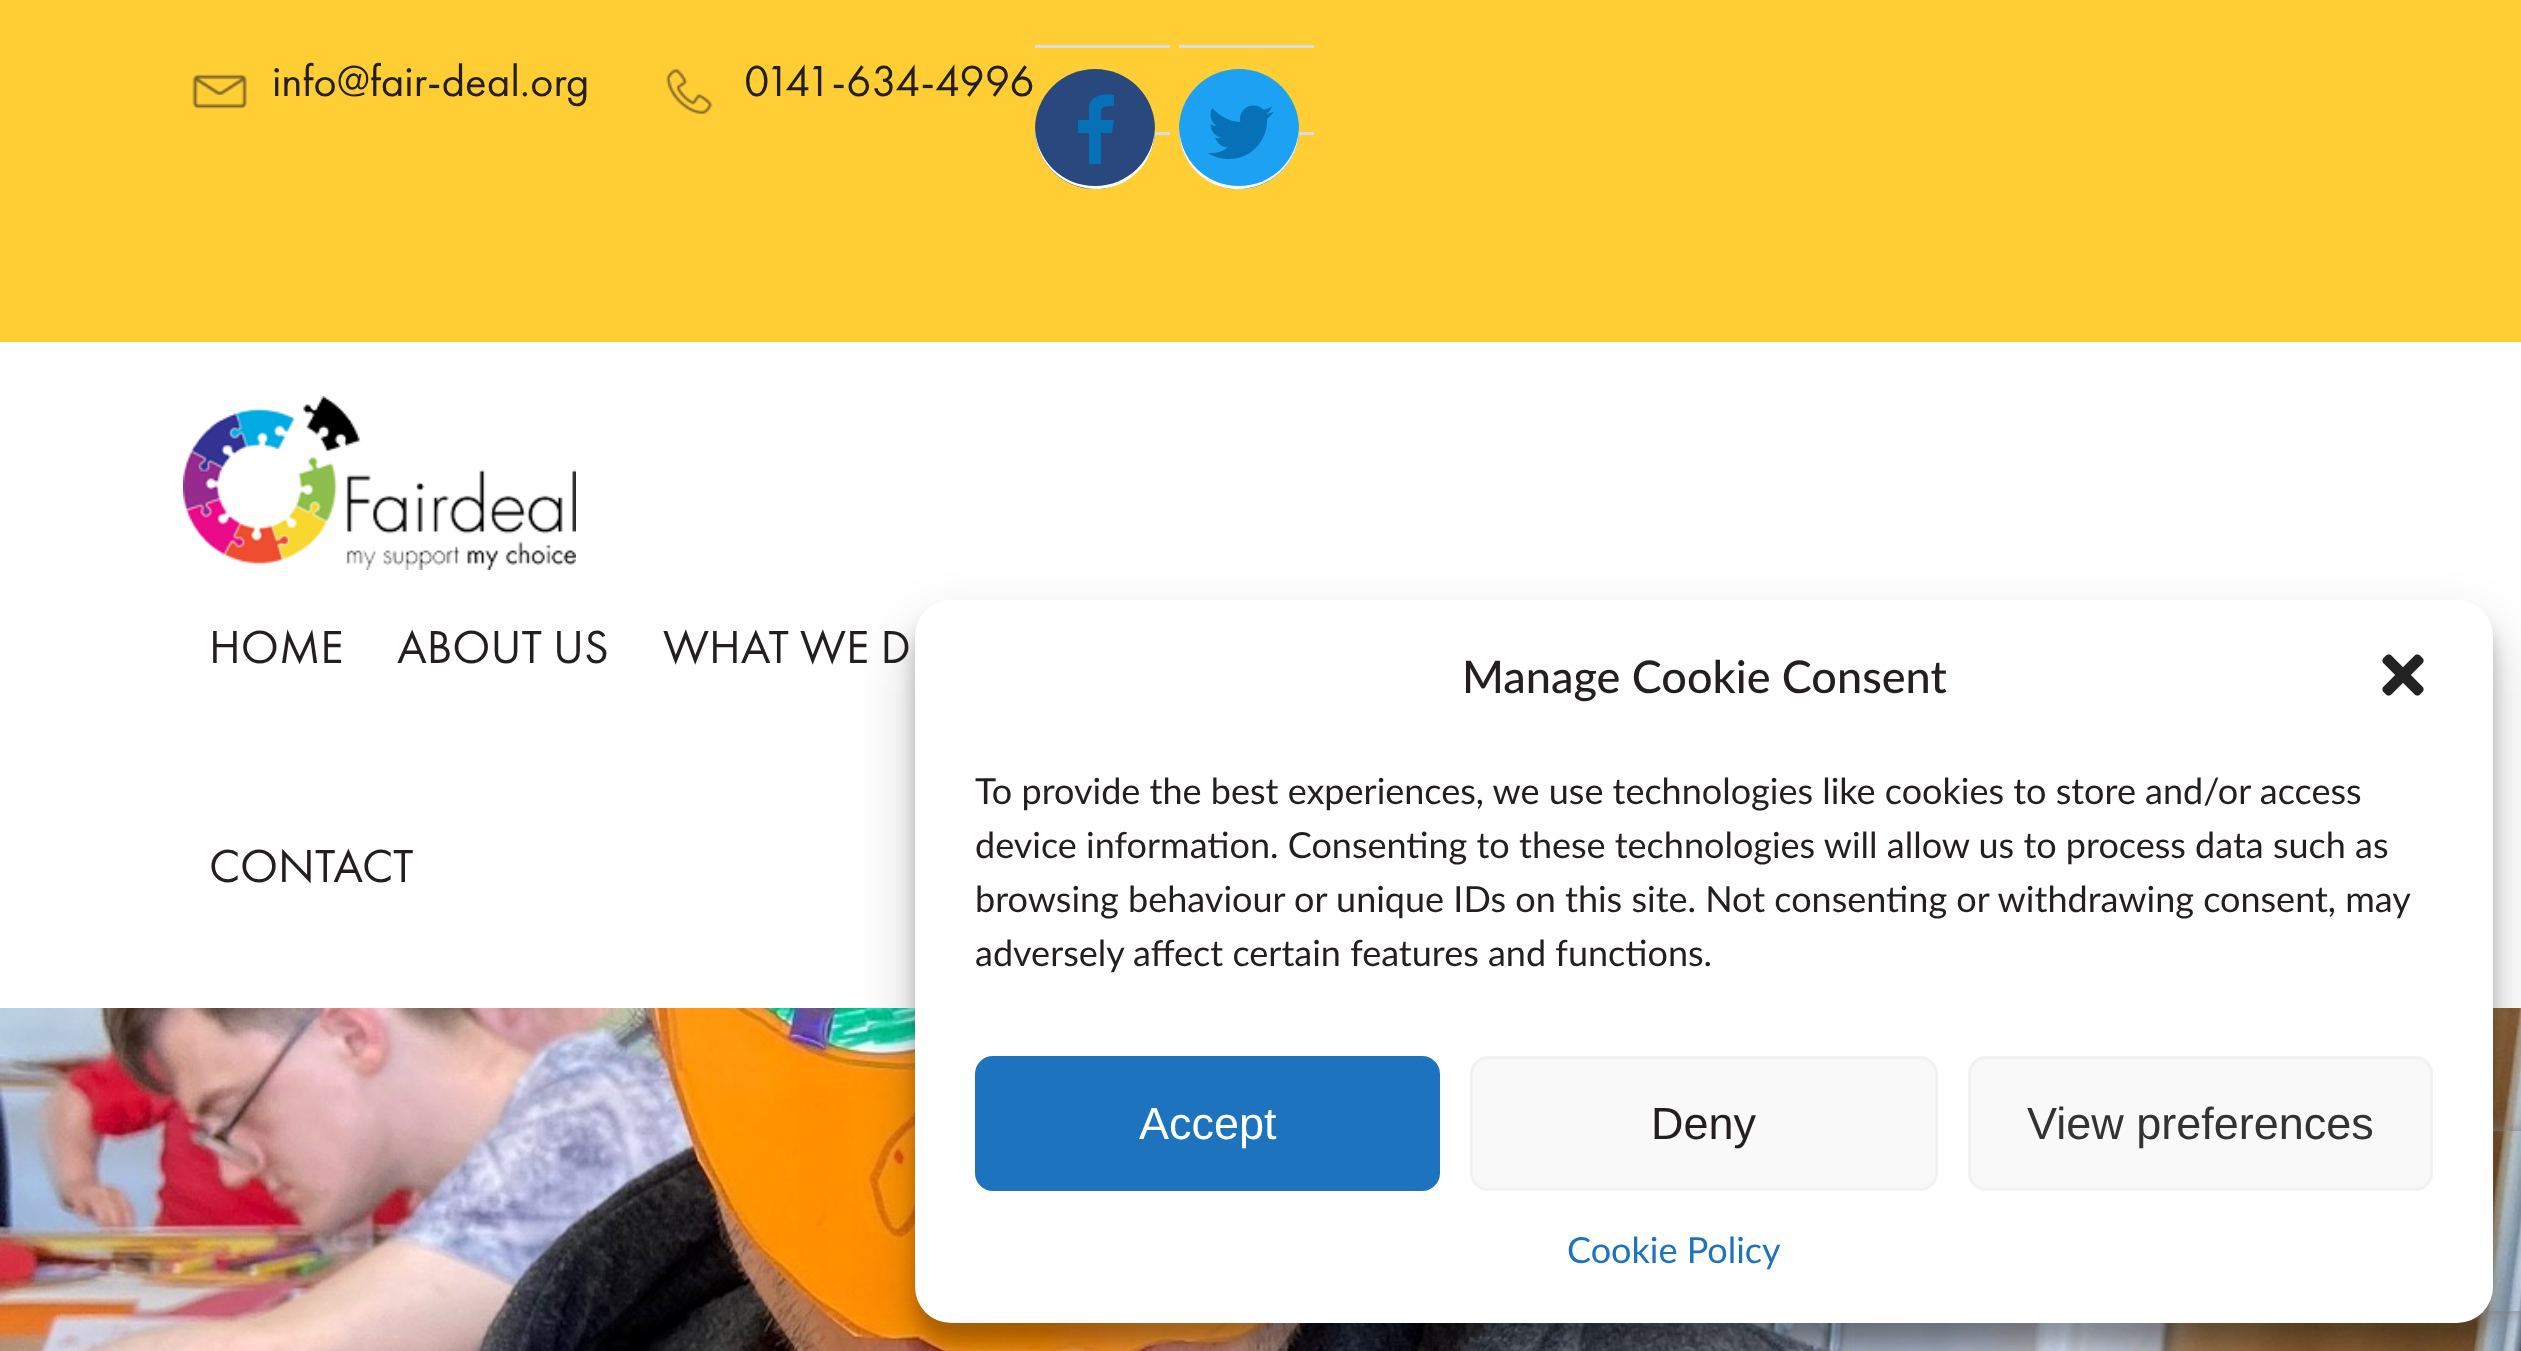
(async () => {
  const canvas = document.querySelector("canvas");
  canvas.width = 2521;
  canvas.height = 1351;
  const ctx = canvas.getContext("2d");
  ctx.miterLimit = 4;
  ctx.fontKerning = "normal";
  async function loadImage(src) {
    const img = new Image();
    img.src = src;
    await img.decode();
    return img;
  }
  let path;

  ctx.fillStyle = "#ffffff";
  ctx.fillRect(0, 0, 2521, 1351);
  ctx.fillStyle = "#ffcd34";
  ctx.fillRect(0, 0, 2521, 342);
  ctx.drawImage(await loadImage("img/1.png"), 192, 74, 55, 35);
  ctx.drawImage(await loadImage("img/2.png"), 666, 69, 47, 45);
  ctx.fillStyle = "#dddddd";
  ctx.fillRect(1035, 45, 135, 3);
  ctx.fillRect(1035, 132, 135, 3);
  ctx.fillStyle = "#29487d";
  ctx.beginPath();
  ctx.arc(1095, 129, 60, 0, Math.PI * 2);
  ctx.fill();
  ctx.fillStyle = "#ffffff";
  path = new Path2D("M1035 127C1034 187 1111 212 1145 163C1152 152 1155 140 1155 127C1154 160 1128 186 1095 186C1062 186 1036 160 1035 127Z");
  ctx.fill(path);
  ctx.fillStyle = "#0671b7";
  path = new Path2D("M1114 95V106C1100 106 1101 107 1101 120H1114L1112 133H1101V164H1089V133H1078V120H1089V107C1091 94 1104 94 1114 95Z");
  ctx.fill(path);
  ctx.fillStyle = "#dddddd";
  ctx.fillRect(1179, 45, 135, 3);
  ctx.fillRect(1179, 132, 135, 3);
  ctx.fillStyle = "#1da1f2";
  ctx.beginPath();
  ctx.arc(1239, 129, 60, 0, Math.PI * 2);
  ctx.fill();
  ctx.fillStyle = "#ffffff";
  path = new Path2D("M1179 127C1179 140 1182 152 1189 163C1223 212 1300 187 1299 127C1298 160 1272 186 1239 186C1206 186 1180 160 1179 127Z");
  ctx.fill(path);
  ctx.drawImage(await loadImage("img/3.png"), 1208, 105, 66, 54);
  ctx.drawImage(await loadImage("img/4.png"), 183, 396, 393, 174);
  ctx.drawImage(await loadImage("img/6.png"), 0, 1008, 2521, 343);
  ctx.fillStyle = "rgba(0, 0, 0, 0.23)";
  ctx.filter = "blur(9px)";
  ctx.beginPath();
  ctx.roundRect(915, 618, 1578, 723, 36);
  ctx.fill();
  ctx.filter = "none";
  ctx.fillStyle = "rgba(0, 0, 0, 0.19)";
  ctx.filter = "blur(30px)";
  ctx.beginPath();
  ctx.roundRect(915, 630, 1578, 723, 36);
  ctx.fill();
  ctx.filter = "none";
  ctx.save();
  path = new Path2D("M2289 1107H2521V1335H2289ZM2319 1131H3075C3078.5 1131 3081 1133.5 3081 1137V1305C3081 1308.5 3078.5 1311 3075 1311H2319C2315.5 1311 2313 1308.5 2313 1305V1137C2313 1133.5 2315.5 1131 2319 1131Z");
  ctx.clip(path, "evenodd");
  ctx.fillStyle = "#808080";
  ctx.filter = "blur(7.5px)";
  ctx.beginPath();
  ctx.roundRect(2313, 1131, 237, 180, 6);
  ctx.fill();
  ctx.filter = "none";
  ctx.restore();
  ctx.fillStyle = "#ffffff";
  ctx.beginPath();
  ctx.roundRect(915, 600, 1578, 723, 36);
  ctx.fill();
  ctx.drawImage(await loadImage("img/5.png"), 2382, 654, 42, 42);
  ctx.fillStyle = "#1e73be";
  ctx.beginPath();
  ctx.roundRect(976.5, 1057.5, 462, 132, 16.5);
  ctx.fill();
  ctx.strokeStyle = "#1e73be";
  ctx.lineWidth = 3;
  ctx.stroke();
  ctx.fillStyle = "#f9f9f9";
  ctx.beginPath();
  ctx.roundRect(1471.5, 1057.5, 465, 132, 16.5);
  ctx.fill();
  ctx.strokeStyle = "#f2f2f2";
  ctx.stroke();
  ctx.beginPath();
  ctx.roundRect(1969.5, 1057.5, 462, 132, 16.5);
  ctx.fill();
  ctx.stroke();
  ctx.font = "45px 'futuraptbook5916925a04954'";
  ctx.fillStyle = "#231f20";
  ctx.fillText("info@fair-deal.org", 272, 96);
  ctx.fillText("0141-634-4996", 744, 96);
  ctx.font = "48px 'futuraptbook5916925a04954'";
  for (const [text, x, y] of [
    ["HOME", 209, 663],
    ["ABOUT US", 397, 663],
    ["WHAT WE D", 663, 663],
    ["CONTACT", 209, 882],
  ]) {
    ctx.fillText(text, x, y);
  }
  ctx.font = "500 45px Lato";
  ctx.fillText("Manage Cookie Consent", 1462, 693);
  ctx.font = "36px Lato";
  for (const [text, x, y] of [
    ["To provide the best experiences, we use technologies like cookies to store and/or access", 975, 804],
    ["device information. Consenting to these technologies will allow us to process data such as", 975, 858],
    ["browsing behaviour or unique IDs on this site. Not consenting or withdrawing consent, may", 975, 912],
    ["adversely affect certain features and functions.", 975, 966],
  ]) {
    ctx.fillText(text, x, y);
  }
  ctx.font = "45px Liberation Sans";
  ctx.fillStyle = "#ffffff";
  ctx.fillText("Accept", 1139, 1139);
  ctx.fillStyle = "#231f20";
  ctx.fillText("Deny", 1651, 1139);
  ctx.fillStyle = "#333333";
  ctx.fillText("View preferences", 2027, 1139);
  ctx.font = "36px Lato";
  ctx.fillStyle = "#1e73be";
  ctx.fillText("Cookie Policy", 1567, 1263);
})();
